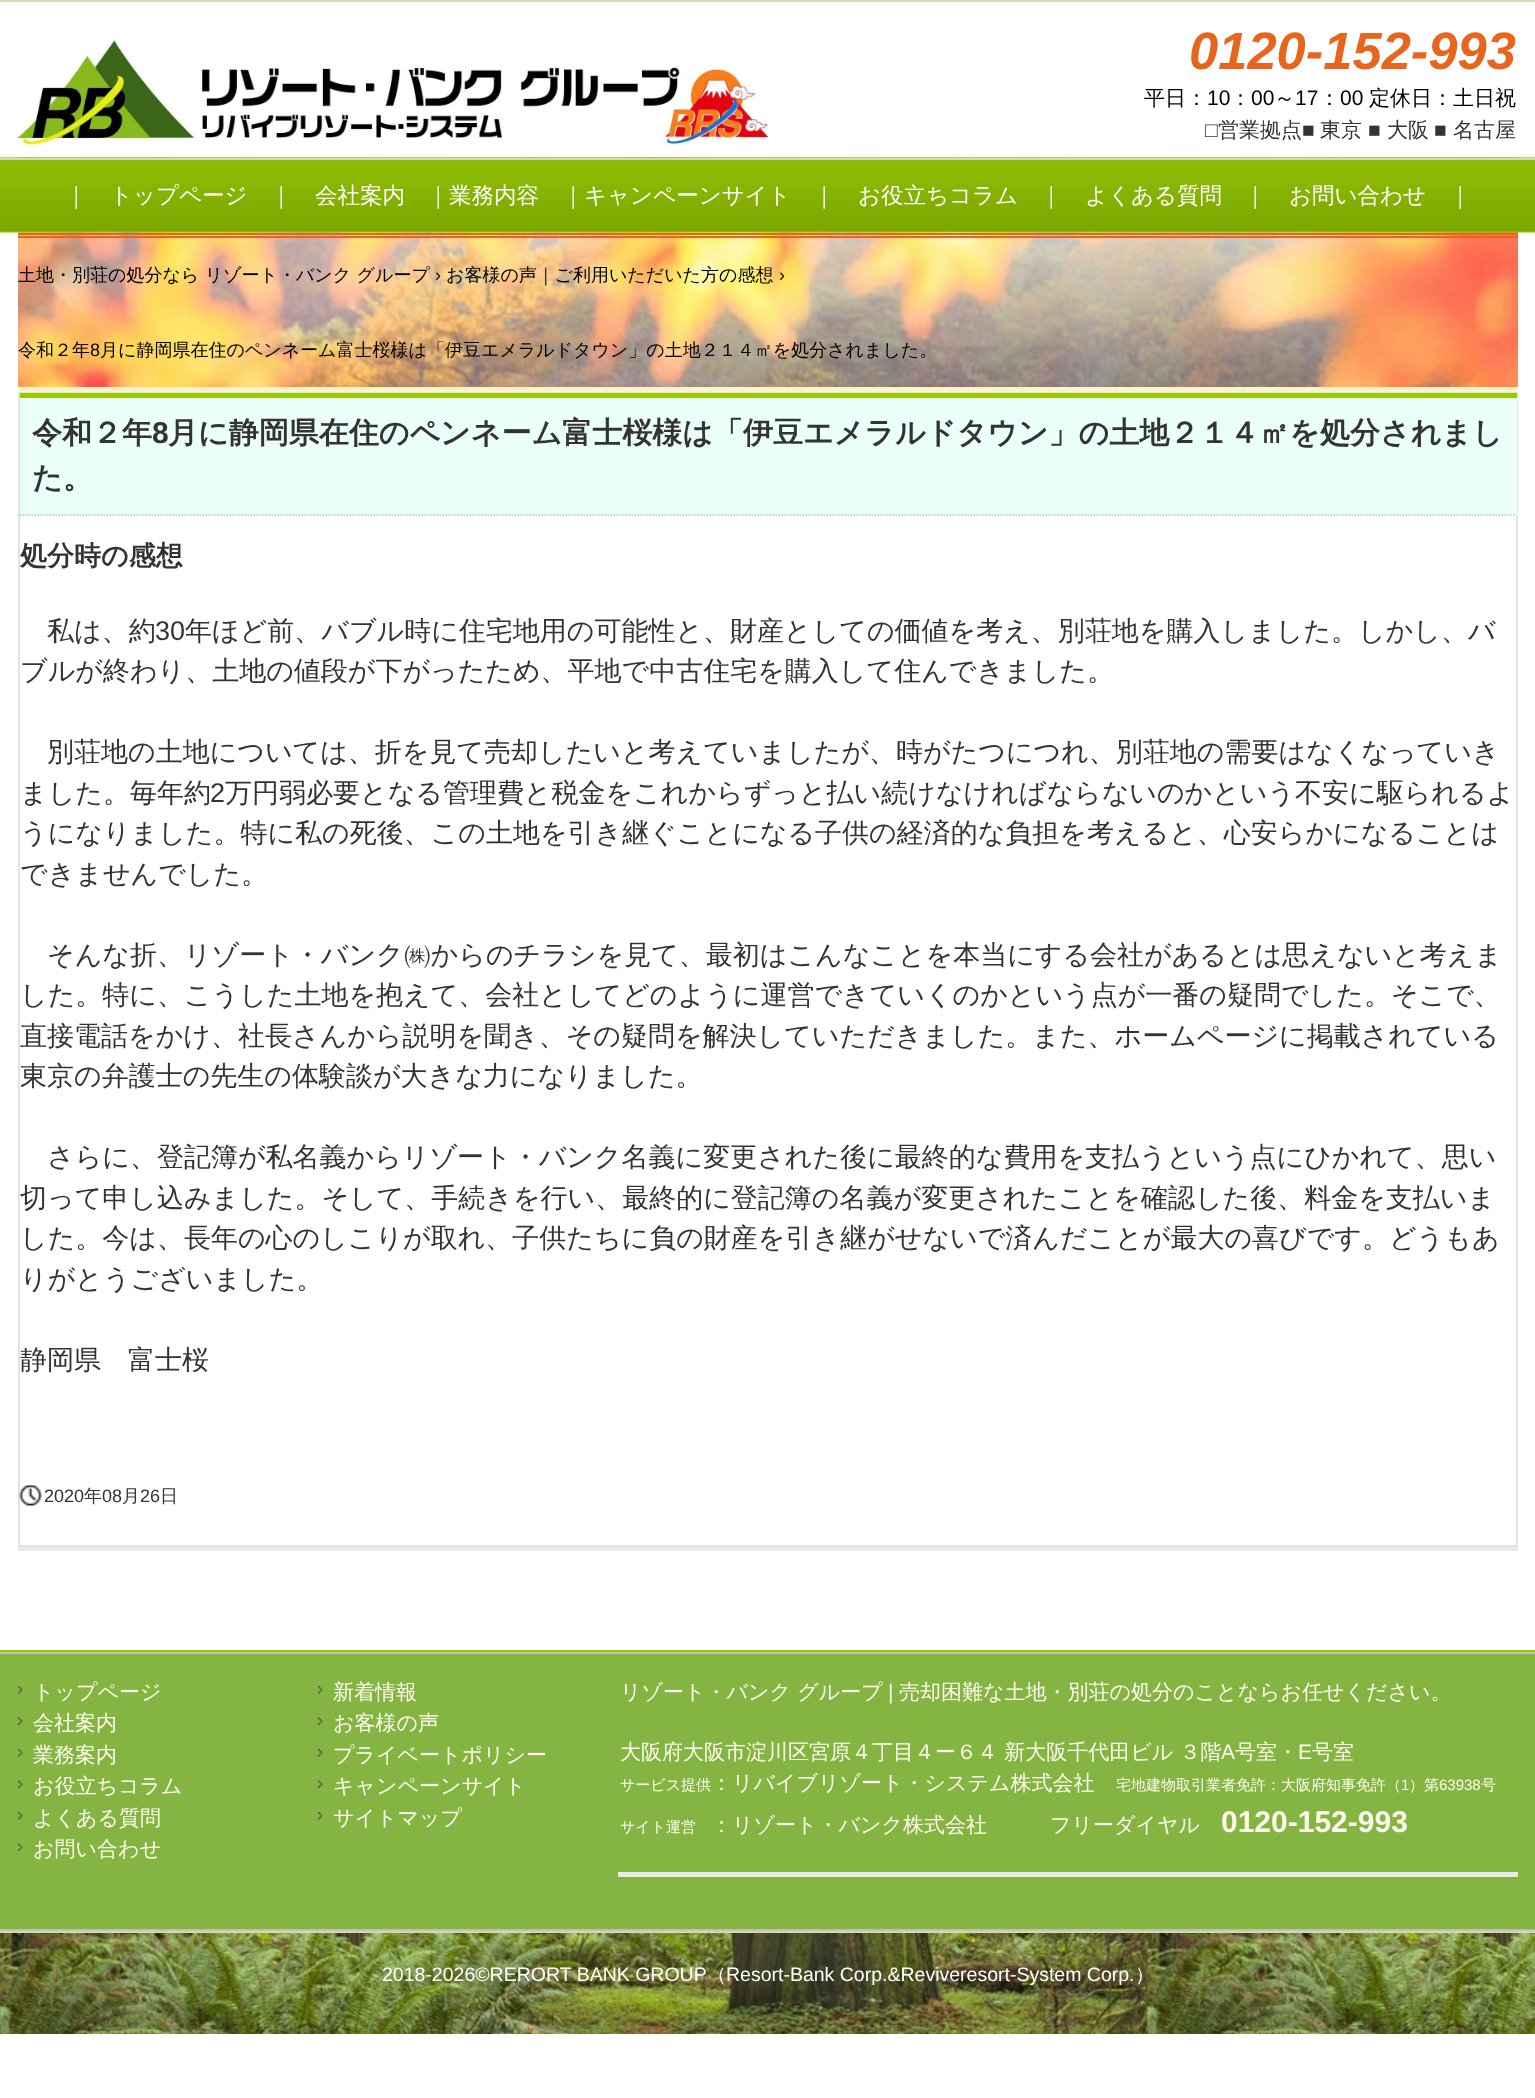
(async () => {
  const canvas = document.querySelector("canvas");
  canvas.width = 1535;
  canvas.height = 2098;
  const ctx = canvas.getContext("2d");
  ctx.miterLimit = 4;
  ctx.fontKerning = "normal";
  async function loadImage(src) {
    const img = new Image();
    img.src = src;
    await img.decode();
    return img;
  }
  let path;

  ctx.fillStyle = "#ffffff";
  ctx.fillRect(0, 0, 1535, 2098);
  ctx.fillStyle = "#d0dbb1";
  ctx.fillRect(0, 0, 1535, 2);
  ctx.drawImage(await loadImage("img/1.png"), 18, 39, 750, 107);
  ctx.drawImage(await loadImage("img/2.png"), 18, 157, 1500, 230);
  ctx.drawImage(await loadImage("img/3.png"), 0, 157, 1535, 76);
  for (const [x, y, w, h, color] of [
    [0, 158, 1535, 2, "#d0dbb1"],
    [18, 233, 1500, 2, "#e8651d"],
    [18, 236, 1500, 2, "#e8651d"],
    [18, 387, 1500, 5, "#fff2cc"],
    [18, 1547, 1500, 4, "#eaeaea"],
  ]) {
    ctx.fillStyle = color;
    ctx.fillRect(x, y, w, h);
  }
  ctx.strokeStyle = "#e3e3e3";
  ctx.lineWidth = 2;
  ctx.strokeRect(19, 393, 1498, 1153);
  ctx.fillStyle = "#eafff9";
  ctx.fillRect(20, 398, 1497, 118);
  ctx.fillStyle = "#97ca00";
  ctx.fillRect(20, 393, 1497, 5);
  path = new Path2D("M19.5 515H1516.5");
  ctx.strokeStyle = "#c3c0b3";
  ctx.lineWidth = 1.5;
  ctx.setLineDash([1.5, 1.5]);
  ctx.stroke(path);
  ctx.drawImage(await loadImage("img/4.png"), 19, 1485, 23, 21);
  ctx.drawImage(await loadImage("img/5.png"), 0, 1933, 1535, 101);
  for (const [x, y, w, h, color] of [
    [0, 1650, 1535, 2, "#97ca00"],
    [0, 1654, 1535, 275, "#84b442"],
    [0, 1652, 1535, 2, "#c3c0b3"],
    [0, 1929, 1535, 2, "#c3c0b3"],
  ]) {
    ctx.fillStyle = color;
    ctx.fillRect(x, y, w, h);
  }
  ctx.drawImage(await loadImage("img/6.png"), 18, 1686, 5, 8);
  ctx.drawImage(await loadImage("img/7.png"), 18, 1717, 5, 8);
  ctx.drawImage(await loadImage("img/6.png"), 18, 1749, 5, 8);
  ctx.drawImage(await loadImage("img/7.png"), 18, 1780, 5, 8);
  ctx.drawImage(await loadImage("img/6.png"), 18, 1812, 5, 8);
  ctx.drawImage(await loadImage("img/7.png"), 18, 1843, 5, 8);
  ctx.drawImage(await loadImage("img/8.png"), 318, 1686, 5, 8);
  ctx.drawImage(await loadImage("img/9.png"), 318, 1717, 5, 8);
  ctx.drawImage(await loadImage("img/8.png"), 318, 1749, 5, 8);
  ctx.drawImage(await loadImage("img/9.png"), 318, 1780, 5, 8);
  ctx.drawImage(await loadImage("img/8.png"), 318, 1812, 5, 8);
  ctx.fillStyle = "#eaeaea";
  ctx.fillRect(618, 1872, 900, 5);
  ctx.fillStyle = "#d0dbb1";
  ctx.fillRect(0, 1931, 1535, 2);
  ctx.font = "italic bold 52.5px Liberation Sans";
  ctx.fillStyle = "#e8651d";
  ctx.fillText("0120-152-993", 1189, 69);
  ctx.font = "500 21px WenQuanYi Zen Hei";
  ctx.fillStyle = "#000000";
  ctx.fillText("平日：", 1144, 105);
  ctx.font = "21px Liberation Sans";
  ctx.fillText("10", 1207, 105);
  ctx.font = "500 21px WenQuanYi Zen Hei";
  ctx.fillText("：", 1230, 105);
  ctx.font = "21px Liberation Sans";
  ctx.fillText("00", 1251, 105);
  ctx.font = "500 21px WenQuanYi Zen Hei";
  ctx.fillText("～", 1274, 105);
  ctx.font = "21px Liberation Sans";
  ctx.fillText("17", 1295, 105);
  ctx.font = "500 21px WenQuanYi Zen Hei";
  ctx.fillText("：", 1319, 105);
  ctx.font = "21px Liberation Sans";
  ctx.fillText("00", 1340, 105);
  ctx.font = "500 21px WenQuanYi Zen Hei";
  ctx.fillText("定休日：土日祝", 1369, 105);
  ctx.font = "21px Liberation Sans";
  ctx.fillStyle = "#333333";
  ctx.fillText("□", 1205, 137);
  ctx.font = "500 21px WenQuanYi Zen Hei";
  ctx.fillText("営業拠点", 1218, 137);
  ctx.font = "21px Liberation Sans";
  ctx.fillText("■", 1302, 137);
  ctx.font = "500 21px WenQuanYi Zen Hei";
  ctx.fillText("東京", 1320, 137);
  ctx.font = "21px Liberation Sans";
  ctx.fillText("■", 1368, 137);
  ctx.font = "500 21px WenQuanYi Zen Hei";
  ctx.fillText("大阪", 1387, 137);
  ctx.font = "21px Liberation Sans";
  ctx.fillText("■", 1434, 137);
  ctx.font = "500 21px WenQuanYi Zen Hei";
  ctx.fillText("名古屋", 1453, 137);
  ctx.font = "500 22.5px WenQuanYi Zen Hei";
  ctx.fillStyle = "#ffffff";
  for (const [text, x, y] of [
    ["｜", 65, 203],
    ["トップページ", 110, 203],
    ["｜", 270, 203],
    ["会社案内", 315, 203],
    ["｜業務内容", 427, 203],
    ["｜キャンペーンサイト", 562, 203],
    ["｜", 813, 203],
    ["お役立ちコラム", 858, 203],
    ["｜", 1040, 203],
    ["よくある質問", 1085, 203],
    ["｜", 1244, 203],
    ["お問い合わせ", 1289, 203],
    ["｜", 1449, 203],
  ]) {
    ctx.fillText(text, x, y);
  }
  ctx.font = "500 18px WenQuanYi Zen Hei";
  ctx.fillStyle = "#000000";
  ctx.fillText("土地・別荘の処分なら リゾート・バンク グループ", 18, 281);
  ctx.font = "18px Liberation Sans";
  ctx.fillText("›", 435, 281);
  ctx.font = "500 18px WenQuanYi Zen Hei";
  ctx.fillText("お客様の声｜ご利用いただいた方の感想", 446, 281);
  ctx.font = "18px Liberation Sans";
  ctx.fillText("›", 779, 281);
  ctx.font = "500 18px WenQuanYi Zen Hei";
  ctx.fillText("令和２年", 18, 356);
  ctx.font = "18px Liberation Sans";
  ctx.fillText("8", 90, 356);
  ctx.font = "500 18px WenQuanYi Zen Hei";
  ctx.fillText("月に静岡県在住のペンネーム富士桜様は「伊豆エメラルドタウン」の土地２１４㎡を処分されました。", 100, 356);
  ctx.font = "bold 30px WenQuanYi Zen Hei";
  ctx.fillStyle = "#333333";
  ctx.fillText("令和２年", 32, 443);
  ctx.font = "bold 30px Liberation Sans";
  ctx.fillText("8", 152, 443);
  ctx.font = "bold 30px WenQuanYi Zen Hei";
  ctx.fillText("月に静岡県在住のペンネーム富士桜様は「伊豆エメラルドタウン」の土地２１４㎡を処分されまし", 168, 443);
  ctx.fillText("た。", 32, 488);
  ctx.font = "bold 27px WenQuanYi Zen Hei";
  ctx.fillText("処分時の感想", 20, 565);
  ctx.font = "500 27px WenQuanYi Zen Hei";
  ctx.fillText("私は、約", 47, 640);
  ctx.font = "27px Liberation Sans";
  ctx.fillText("30", 155, 640);
  ctx.font = "500 27px WenQuanYi Zen Hei";
  for (const [text, x, y] of [
    ["年ほど前、バブル時に住宅地用の可能性と、財産としての価値を考え、別荘地を購入しました。しかし、バ", 185, 640],
    ["ブルが終わり、土地の値段が下がったため、平地で中古住宅を購入して住んできました。", 20, 680],
    ["別荘地の土地については、折を見て売却したいと考えていましたが、時がたつにつれ、別荘地の需要はなくなっていき", 47, 761],
    ["ました。毎年約", 20, 802],
  ]) {
    ctx.fillText(text, x, y);
  }
  ctx.font = "27px Liberation Sans";
  ctx.fillText("2", 210, 802);
  ctx.font = "500 27px WenQuanYi Zen Hei";
  for (const [text, x, y] of [
    ["万円弱必要となる管理費と税金をこれからずっと払い続けなければならないのかという不安に駆られるよ", 225, 802],
    ["うになりました。特に私の死後、この土地を引き継ぐことになる子供の経済的な負担を考えると、心安らかになることは", 20, 842],
    ["できませんでした。", 20, 883],
    ["そんな折、リゾート・バンク㈱からのチラシを見て、最初はこんなことを本当にする会社があるとは思えないと考えま", 47, 964],
    ["した。特に、こうした土地を抱えて、会社としてどのように運営できていくのかという点が一番の疑問でした。そこで、", 20, 1004],
    ["直接電話をかけ、社長さんから説明を聞き、その疑問を解決していただきました。また、ホームページに掲載されている", 20, 1045],
    ["東京の弁護士の先生の体験談が大きな力になりました。", 20, 1085],
    ["さらに、登記簿が私名義からリゾート・バンク名義に変更された後に最終的な費用を支払うという点にひかれて、思い", 47, 1166],
    ["切って申し込みました。そして、手続きを行い、最終的に登記簿の名義が変更されたことを確認した後、料金を支払いま", 20, 1207],
    ["した。今は、長年の心のしこりが取れ、子供たちに負の財産を引き継がせないで済んだことが最大の喜びです。どうもあ", 20, 1247],
    ["りがとうございました。", 20, 1288],
    ["静岡県　富士桜", 20, 1369],
  ]) {
    ctx.fillText(text, x, y);
  }
  ctx.font = "18px Liberation Sans";
  ctx.fillText("2020", 44, 1502);
  ctx.font = "500 18px WenQuanYi Zen Hei";
  ctx.fillText("年", 84, 1502);
  ctx.font = "18px Liberation Sans";
  ctx.fillText("08", 102, 1502);
  ctx.font = "500 18px WenQuanYi Zen Hei";
  ctx.fillText("月", 122, 1502);
  ctx.font = "18px Liberation Sans";
  ctx.fillText("26", 140, 1502);
  ctx.font = "500 18px WenQuanYi Zen Hei";
  ctx.fillText("日", 160, 1502);
  ctx.font = "500 21px WenQuanYi Zen Hei";
  ctx.fillStyle = "#fffdee";
  for (const [text, x, y] of [
    ["トップページ", 33, 1699],
    ["会社案内", 33, 1730],
    ["業務案内", 33, 1762],
    ["お役立ちコラム", 33, 1793],
    ["よくある質問", 33, 1825],
    ["お問い合わせ", 33, 1856],
    ["新着情報", 333, 1699],
    ["お客様の声", 333, 1730],
    ["プライベートポリシー", 333, 1762],
    ["キャンペーンサイト", 333, 1793],
    ["サイトマップ", 333, 1825],
    ["リゾート・バンク グループ", 620, 1699],
  ]) {
    ctx.fillText(text, x, y);
  }
  ctx.font = "21px Liberation Sans";
  ctx.fillText("|", 888, 1699);
  ctx.font = "500 21px WenQuanYi Zen Hei";
  ctx.fillText("売却困難な土地・別荘の処分のことならお任せください。", 899, 1699);
  ctx.fillText("大阪府大阪市淀川区宮原４丁目４ー６４ 新大阪千代田ビル ３階", 620, 1759);
  ctx.font = "21px Liberation Sans";
  ctx.fillText("A", 1221, 1759);
  ctx.font = "500 21px WenQuanYi Zen Hei";
  ctx.fillText("号室・", 1235, 1759);
  ctx.font = "21px Liberation Sans";
  ctx.fillText("E", 1298, 1759);
  ctx.font = "500 21px WenQuanYi Zen Hei";
  ctx.fillText("号室", 1312, 1759);
  ctx.font = "500 15px WenQuanYi Zen Hei";
  ctx.fillText("サービス提供", 620, 1790);
  ctx.font = "500 21px WenQuanYi Zen Hei";
  ctx.fillText("：リバイブリゾート・システム株式会社", 711, 1790);
  ctx.font = "500 15px WenQuanYi Zen Hei";
  ctx.fillText("宅地建物取引業者免許：大阪府知事免許（", 1116, 1790);
  ctx.font = "15px Liberation Sans";
  ctx.fillText("1", 1401, 1790);
  ctx.font = "500 15px WenQuanYi Zen Hei";
  ctx.fillText("）第", 1409, 1790);
  ctx.font = "15px Liberation Sans";
  ctx.fillText("63938", 1439, 1790);
  ctx.font = "500 15px WenQuanYi Zen Hei";
  ctx.fillText("号", 1481, 1790);
  ctx.fillText("サイト運営", 620, 1832);
  ctx.font = "500 21px WenQuanYi Zen Hei";
  ctx.fillText("：リゾート・バンク株式会社　　　フリーダイヤル", 711, 1832);
  ctx.font = "bold 30px Liberation Sans";
  ctx.fillText("0120-152-993", 1221, 1832);
  ctx.font = "19.5px Liberation Sans";
  ctx.fillStyle = "#ffffff";
  ctx.fillText("2018-2026©RERORT BANK GROUP", 382, 1981);
  ctx.font = "500 19.5px WenQuanYi Zen Hei";
  ctx.fillText("（", 707, 1981);
  ctx.font = "19.5px Liberation Sans";
  ctx.fillText("Resort-Bank Corp.&Reviveresort-System Corp.", 726, 1981);
  ctx.font = "500 19.5px WenQuanYi Zen Hei";
  ctx.fillText("）", 1135, 1981);
})();
